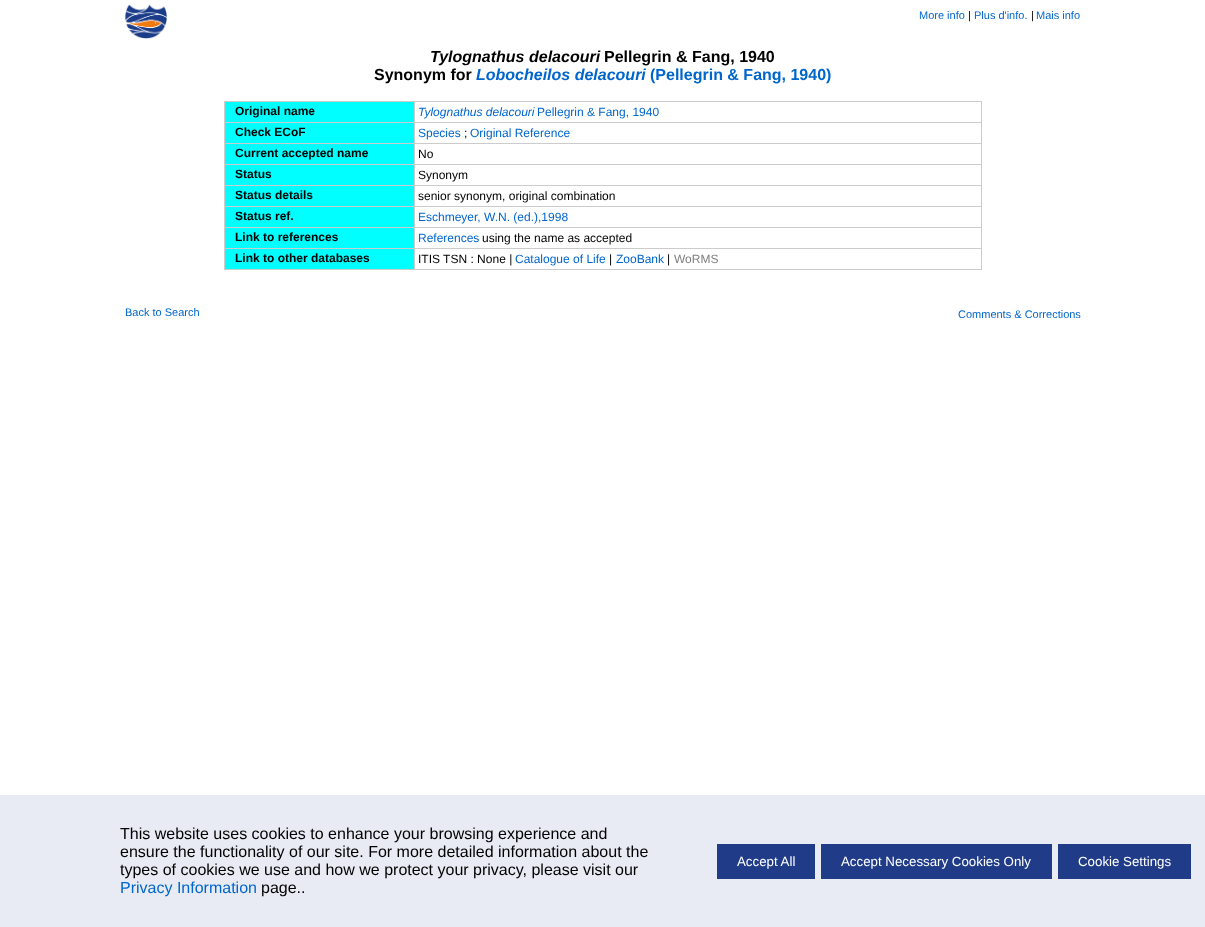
(async () => {
  const canvas = document.querySelector("canvas");
  canvas.width = 1205;
  canvas.height = 927;
  const ctx = canvas.getContext("2d");
  ctx.miterLimit = 4;
  ctx.fontKerning = "normal";
  async function loadImage(src) {
    const img = new Image();
    img.src = src;
    await img.decode();
    return img;
  }

  ctx.fillStyle = "#ffffff";
  ctx.fillRect(0, 0, 1205, 927);
  ctx.drawImage(await loadImage("img/1.png"), 125, 4, 42, 35);
  for (const [x, y, w, h, color] of [
    [224, 101, 758, 1, "#cccccc"],
    [981, 101, 1, 169, "#cccccc"],
    [224, 269, 758, 1, "#cccccc"],
    [224, 101, 1, 169, "#cccccc"],
    [225, 102, 189, 20, "#00ffff"],
    [224, 122, 758, 1, "#cccccc"],
    [225, 123, 189, 20, "#00ffff"],
    [224, 143, 758, 1, "#cccccc"],
    [225, 144, 189, 20, "#00ffff"],
    [224, 164, 758, 1, "#cccccc"],
    [225, 165, 189, 20, "#00ffff"],
    [224, 185, 758, 1, "#cccccc"],
    [225, 186, 189, 20, "#00ffff"],
    [224, 206, 758, 1, "#cccccc"],
    [225, 207, 189, 20, "#00ffff"],
    [224, 227, 758, 1, "#cccccc"],
    [225, 228, 189, 20, "#00ffff"],
    [224, 248, 758, 1, "#cccccc"],
    [225, 249, 189, 20, "#00ffff"],
    [414, 101, 1, 169, "#cccccc"],
    [0, 795, 1205, 132, "#e8ebf3"],
    [717, 844, 98, 35, "#203c88"],
    [821, 844, 231, 35, "#203c88"],
    [1058, 844, 133, 35, "#203c88"],
  ]) {
    ctx.fillStyle = color;
    ctx.fillRect(x, y, w, h);
  }
  ctx.font = "11px Liberation Sans";
  ctx.fillStyle = "#0066cc";
  ctx.fillText("More info", 919, 19);
  ctx.fillStyle = "#000000";
  ctx.fillText("|", 968, 19);
  ctx.fillStyle = "#0066cc";
  ctx.fillText("Plus d'info.", 974, 19);
  ctx.fillStyle = "#000000";
  ctx.fillText("|", 1031, 19);
  ctx.fillStyle = "#0066cc";
  ctx.fillText("Mais info", 1036, 19);
  ctx.font = "italic bold 16px Liberation Sans";
  ctx.fillStyle = "#000000";
  ctx.fillText("Tylognathus delacouri", 430, 62);
  ctx.font = "bold 16px Liberation Sans";
  ctx.fillText("Pellegrin & Fang, 1940", 604, 62);
  ctx.fillText("Synonym for", 374, 80);
  ctx.font = "italic bold 16px Liberation Sans";
  ctx.fillStyle = "#0066cc";
  ctx.fillText("Lobocheilos delacouri", 476, 80);
  ctx.font = "bold 16px Liberation Sans";
  ctx.fillText("(Pellegrin & Fang, 1940)", 650, 80);
  ctx.font = "bold 12px Liberation Sans";
  ctx.fillStyle = "#000000";
  ctx.fillText("Original name", 235, 115);
  ctx.font = "italic 12px Liberation Sans";
  ctx.fillStyle = "#0066cc";
  ctx.fillText("Tylognathus delacouri", 418, 116);
  ctx.font = "12px Liberation Sans";
  ctx.fillText("Pellegrin & Fang, 1940", 537, 116);
  ctx.font = "bold 12px Liberation Sans";
  ctx.fillStyle = "#000000";
  ctx.fillText("Check ECoF", 235, 136);
  ctx.font = "12px Liberation Sans";
  ctx.fillStyle = "#0066cc";
  ctx.fillText("Species", 418, 137);
  ctx.fillStyle = "#000000";
  ctx.fillText(";", 464, 137);
  ctx.fillStyle = "#0066cc";
  ctx.fillText("Original Reference", 470, 137);
  ctx.font = "bold 12px Liberation Sans";
  ctx.fillStyle = "#000000";
  ctx.fillText("Current accepted name", 235, 157);
  ctx.font = "12px Liberation Sans";
  ctx.fillText("No", 418, 158);
  ctx.font = "bold 12px Liberation Sans";
  ctx.fillText("Status", 235, 178);
  ctx.font = "12px Liberation Sans";
  ctx.fillText("Synonym", 418, 179);
  ctx.font = "bold 12px Liberation Sans";
  ctx.fillText("Status details", 235, 199);
  ctx.font = "12px Liberation Sans";
  ctx.fillText("senior synonym, original combination", 418, 200);
  ctx.font = "bold 12px Liberation Sans";
  ctx.fillText("Status ref.", 235, 220);
  ctx.font = "12px Liberation Sans";
  ctx.fillStyle = "#0066cc";
  ctx.fillText("Eschmeyer, W.N. (ed.),1998", 418, 221);
  ctx.font = "bold 12px Liberation Sans";
  ctx.fillStyle = "#000000";
  ctx.fillText("Link to references", 235, 241);
  ctx.font = "12px Liberation Sans";
  ctx.fillStyle = "#0066cc";
  ctx.fillText("References", 418, 242);
  ctx.fillStyle = "#000000";
  ctx.fillText("using the name as accepted", 482, 242);
  ctx.font = "bold 12px Liberation Sans";
  ctx.fillText("Link to other databases", 235, 262);
  ctx.font = "12px Liberation Sans";
  ctx.fillText("ITIS TSN : None |", 418, 263);
  ctx.fillStyle = "#0066cc";
  ctx.fillText("Catalogue of Life", 515, 263);
  ctx.fillStyle = "#000000";
  ctx.fillText("|", 609, 263);
  ctx.fillStyle = "#0066cc";
  ctx.fillText("ZooBank", 616, 263);
  ctx.fillStyle = "#000000";
  ctx.fillText("|", 667, 263);
  ctx.fillStyle = "#808080";
  ctx.fillText("WoRMS", 674, 263);
  ctx.font = "11px Liberation Sans";
  ctx.fillStyle = "#0066cc";
  ctx.fillText("Back to Search", 125, 316);
  ctx.fillText("Comments & Corrections", 958, 318);
  ctx.font = "16px Liberation Sans";
  ctx.fillStyle = "#000000";
  for (const [text, x, y] of [
    ["This website uses cookies to enhance your browsing experience and", 120, 839],
    ["ensure the functionality of our site. For more detailed information about the", 120, 857],
    ["types of cookies we use and how we protect your privacy, please visit our", 120, 875],
  ]) {
    ctx.fillText(text, x, y);
  }
  ctx.fillStyle = "#0066cc";
  ctx.fillText("Privacy Information", 120, 893);
  ctx.fillStyle = "#000000";
  ctx.fillText("page..", 261, 893);
  ctx.font = "13.3px Liberation Sans";
  ctx.fillStyle = "#ffffff";
  for (const [text, x, y] of [
    ["Accept All", 737, 866],
    ["Accept Necessary Cookies Only", 841, 866],
    ["Cookie Settings", 1078, 866],
  ]) {
    ctx.fillText(text, x, y);
  }
})();
